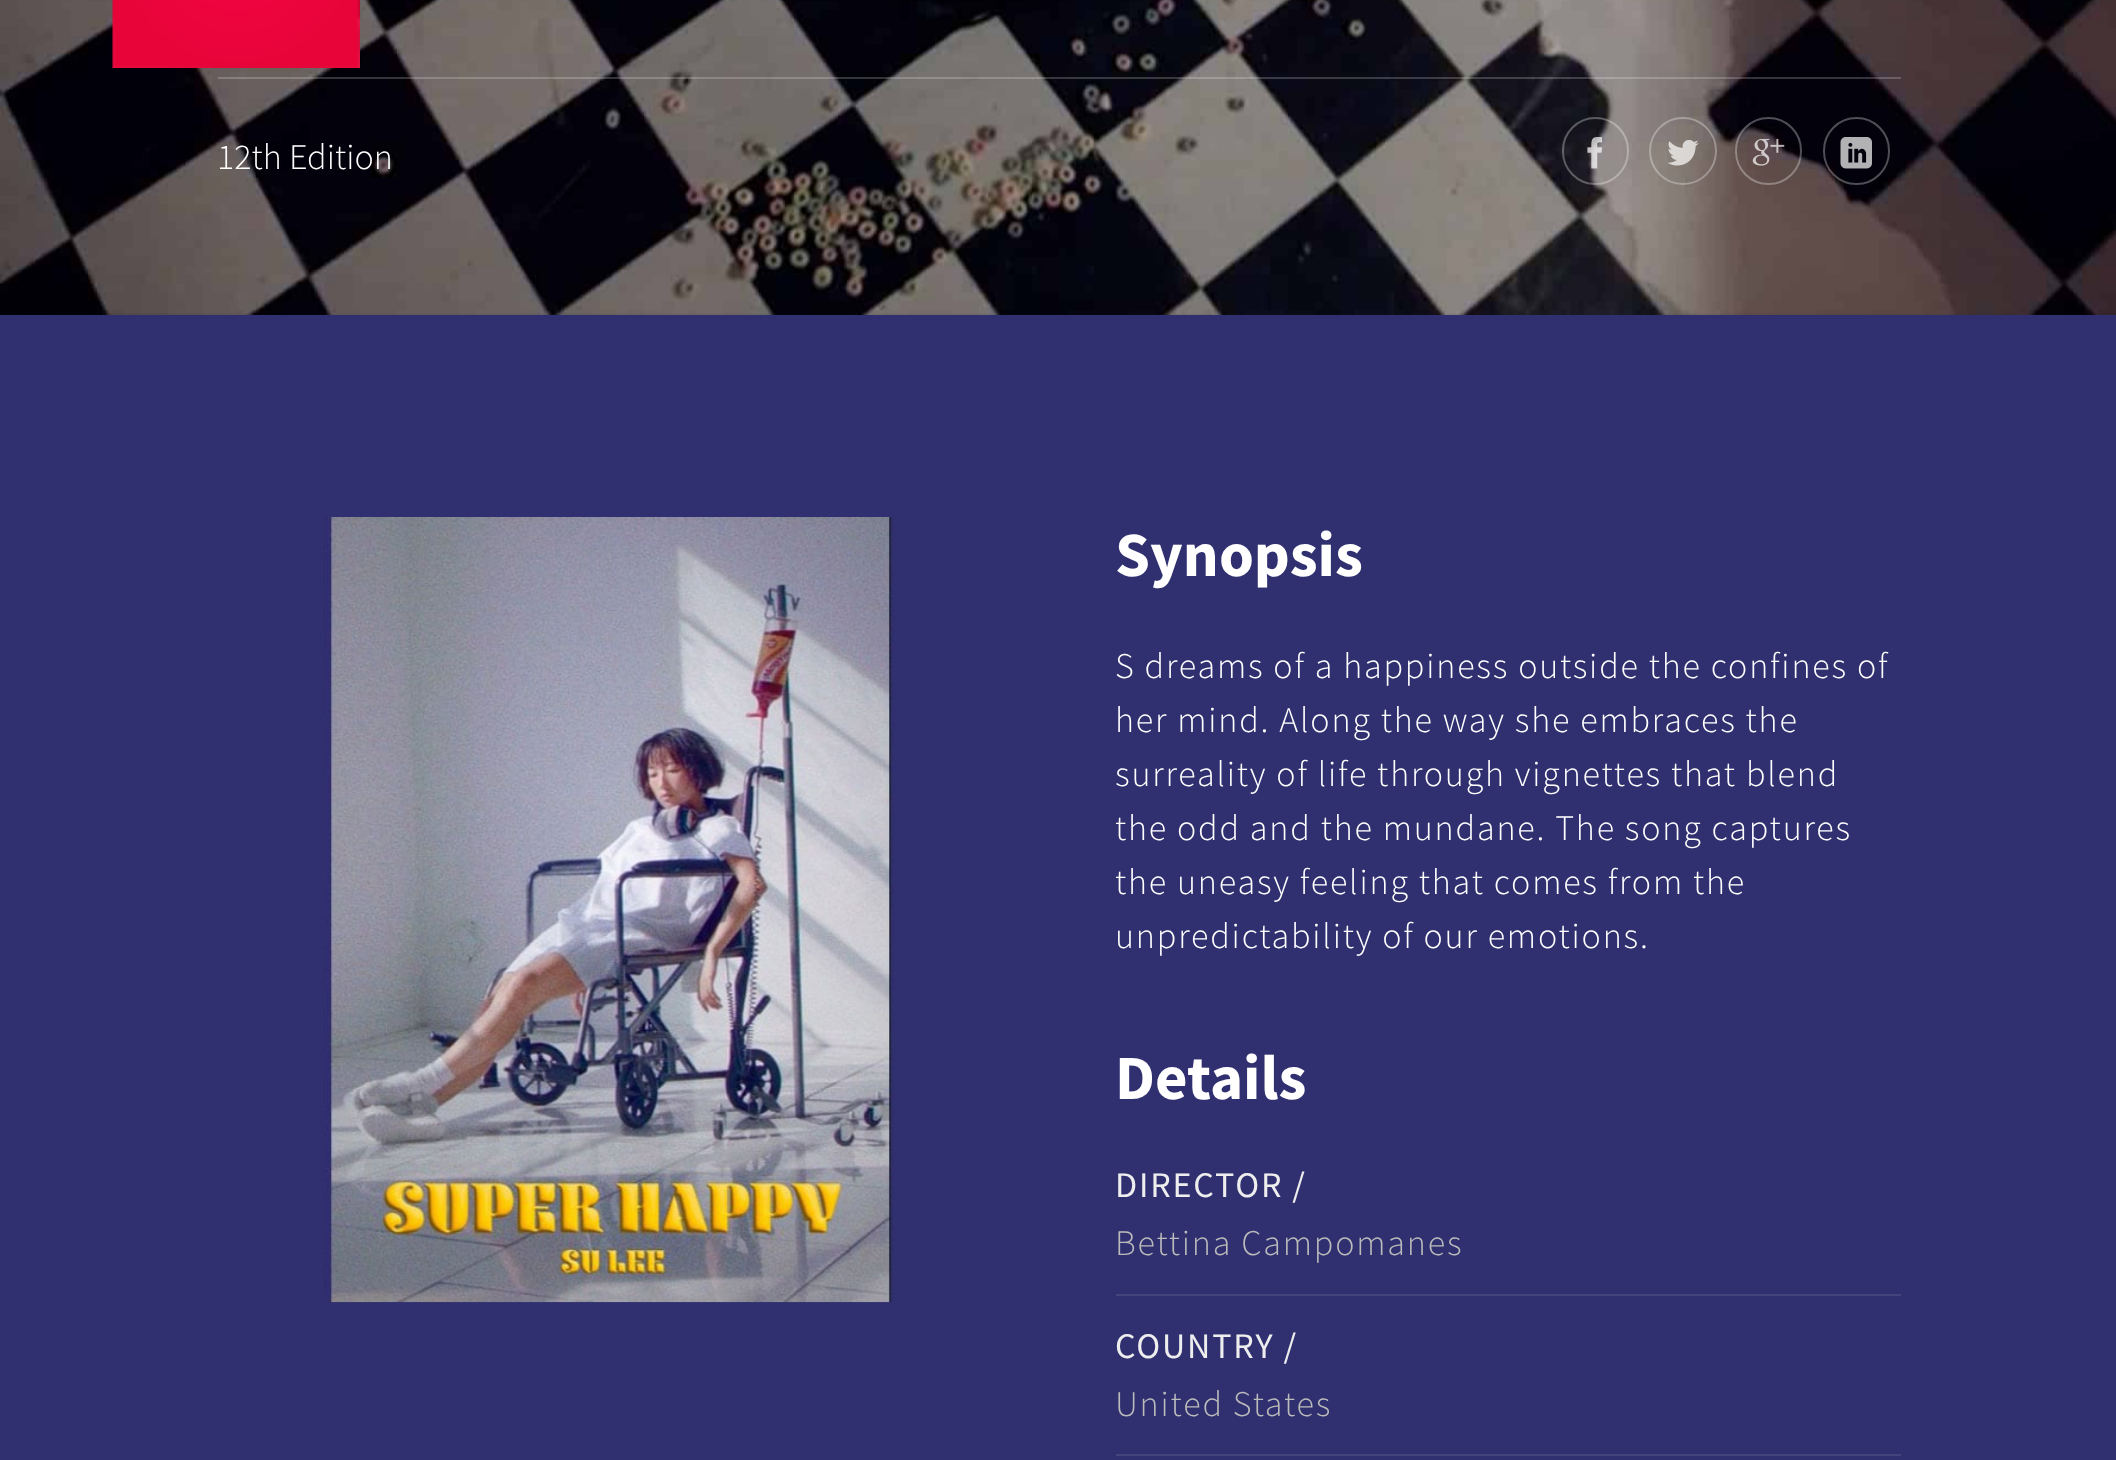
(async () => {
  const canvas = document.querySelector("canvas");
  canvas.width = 2116;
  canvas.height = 1460;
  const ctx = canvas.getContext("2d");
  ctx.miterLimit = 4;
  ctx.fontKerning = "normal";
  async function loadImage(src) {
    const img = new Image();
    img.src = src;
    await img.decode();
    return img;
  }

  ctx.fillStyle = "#303070";
  ctx.fillRect(0, 0, 2116, 1460);
  ctx.drawImage(await loadImage("img/2.png"), 0, 313, 2116, 2);
  ctx.drawImage(await loadImage("img/3.png"), 0, 0, 2116, 315);
  ctx.drawImage(await loadImage("img/1.png"), 112, 0, 248, 68);
  ctx.fillStyle = "rgba(255, 255, 255, 0.2)";
  ctx.fillRect(218, 77, 1683, 2);
  ctx.beginPath();
  ctx.roundRect(1563, 118, 65, 66, 32.5);
  ctx.strokeStyle = "rgba(255, 255, 255, 0.3)";
  ctx.lineWidth = 2;
  ctx.stroke();
  ctx.drawImage(await loadImage("img/4.png"), 1587, 137, 16, 32);
  ctx.beginPath();
  ctx.arc(1683, 151, 33, 0, Math.PI * 2);
  ctx.stroke();
  ctx.drawImage(await loadImage("img/5.png"), 1667, 140, 32, 26);
  ctx.beginPath();
  ctx.roundRect(1736, 118, 65, 66, 32.5);
  ctx.stroke();
  ctx.drawImage(await loadImage("img/6.png"), 1752, 138, 33, 28);
  ctx.beginPath();
  ctx.roundRect(1824, 118, 65, 66, 32.5);
  ctx.stroke();
  ctx.drawImage(await loadImage("img/7.png"), 1840, 137, 32, 32);
  ctx.drawImage(await loadImage("img/8.png"), 323, 517, 571, 786);
  ctx.fillStyle = "#45457e";
  ctx.fillRect(1116, 1294, 785, 2);
  ctx.fillRect(1116, 1454, 785, 2);
  ctx.font = "300 36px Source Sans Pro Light";
  ctx.fillStyle = "#ffffff";
  ctx.fillText("12th Edition", 217, 169);
  ctx.font = "bold 63px Source Sans Pro";
  ctx.fillText("Synopsis", 1115, 576);
  ctx.letterSpacing = "1.8px";
  ctx.font = "300 36px Source Sans Pro Light";
  for (const [text, x, y] of [
    ["S dreams of a happiness outside the confines of", 1115, 678],
    ["her mind. Along the way she embraces the", 1115, 732],
    ["surreality of life through vignettes that blend", 1115, 786],
    ["the odd and the mundane. The song captures", 1115, 840],
    ["the uneasy feeling that comes from the", 1115, 894],
    ["unpredictability of our emotions.", 1115, 948],
  ]) {
    ctx.fillText(text, x, y);
  }
  ctx.letterSpacing = "0px";
  ctx.font = "bold 63px Source Sans Pro";
  ctx.fillText("Details", 1115, 1099);
  ctx.letterSpacing = "1.8px";
  ctx.font = "36px Source Sans Pro";
  ctx.fillStyle = "#eeeeee";
  ctx.fillText("DIRECTOR /", 1115, 1197);
  ctx.font = "300 36px Source Sans Pro Light";
  ctx.fillStyle = "#bbbbbb";
  ctx.fillText("Bettina Campomanes", 1115, 1255);
  ctx.font = "36px Source Sans Pro";
  ctx.fillStyle = "#eeeeee";
  ctx.fillText("COUNTRY /", 1115, 1358);
  ctx.font = "300 36px Source Sans Pro Light";
  ctx.fillStyle = "#bbbbbb";
  ctx.fillText("United States", 1115, 1416);
})();
